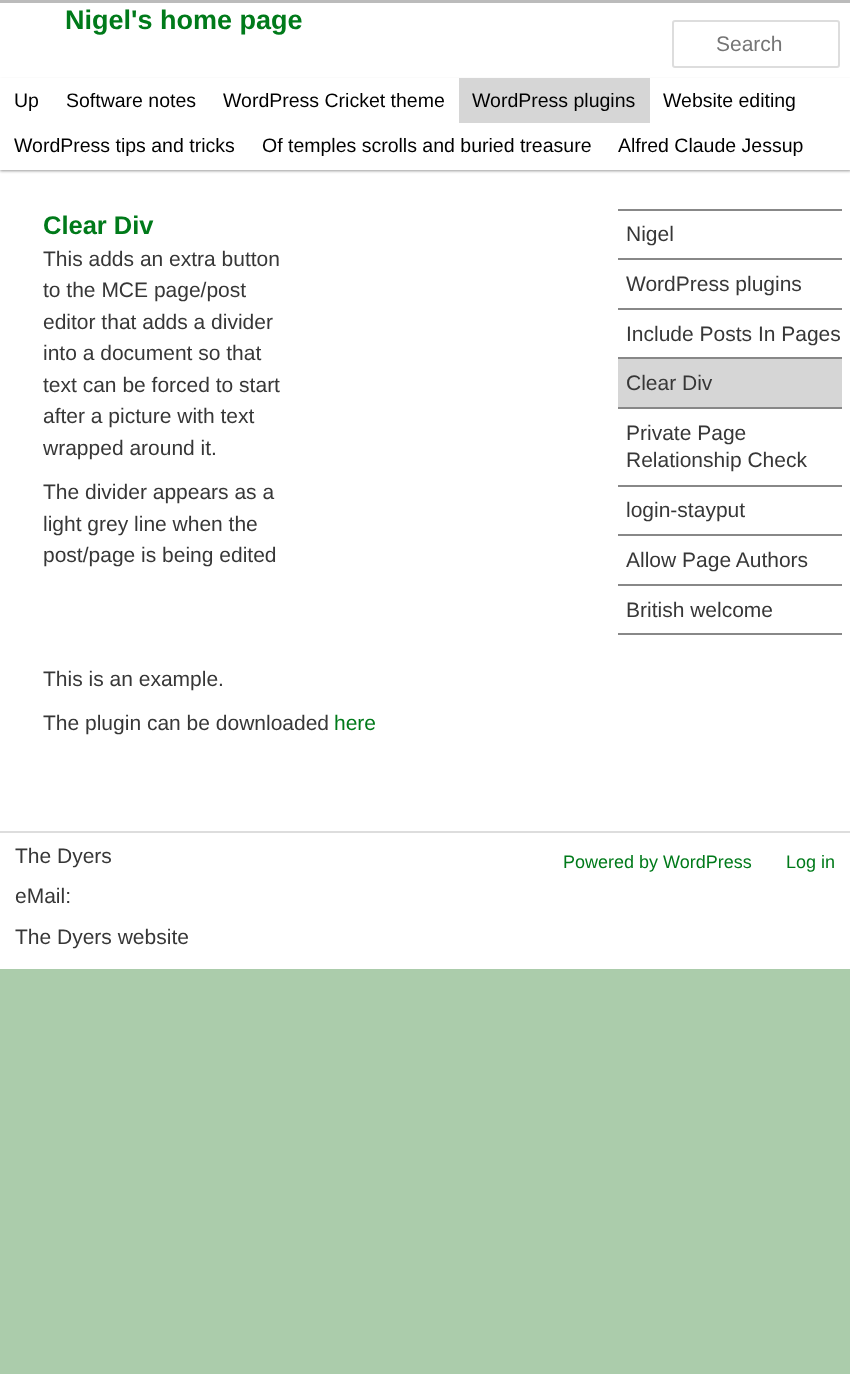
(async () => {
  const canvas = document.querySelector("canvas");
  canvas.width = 850;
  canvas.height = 1374;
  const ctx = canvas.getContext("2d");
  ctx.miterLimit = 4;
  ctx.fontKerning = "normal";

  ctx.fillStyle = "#abccab";
  ctx.fillRect(0, 0, 850, 1374);
  ctx.fillStyle = "#ffffff";
  ctx.fillRect(0, 3, 850, 966);
  ctx.fillStyle = "#bbbbbb";
  ctx.fillRect(0, 0, 850, 3);
  ctx.beginPath();
  ctx.roundRect(673, 21, 166, 46, 2);
  ctx.strokeStyle = "#dddddd";
  ctx.lineWidth = 2;
  ctx.stroke();
  ctx.fillStyle = "rgba(0, 0, 0, 0.4)";
  ctx.filter = "blur(1.5px)";
  ctx.beginPath();
  ctx.rect(0, 80, 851, 91);
  ctx.fill();
  ctx.filter = "none";
  for (const [x, y, w, h, color] of [
    [0, 78, 850, 92, "#ffffff"],
    [459, 78, 191, 45, "#d6d6d6"],
    [618, 633, 224, 2, "#888888"],
    [618, 209, 224, 2, "#888888"],
    [618, 258, 224, 2, "#888888"],
    [618, 308, 224, 2, "#888888"],
    [618, 359, 224, 48, "#d6d6d6"],
    [618, 357, 224, 2, "#888888"],
    [618, 407, 224, 2, "#888888"],
    [618, 485, 224, 2, "#888888"],
    [618, 534, 224, 2, "#888888"],
    [618, 584, 224, 2, "#888888"],
    [0, 831, 850, 2, "#dddddd"],
  ]) {
    ctx.fillStyle = color;
    ctx.fillRect(x, y, w, h);
  }
  ctx.font = "bold 27px Liberation Sans";
  ctx.fillStyle = "#007a1a";
  ctx.fillText("Nigel's home page", 65, 29);
  ctx.font = "21px Liberation Sans";
  ctx.fillStyle = "#757575";
  ctx.fillText("Search", 716, 51);
  ctx.font = "19.5px Liberation Sans";
  ctx.fillStyle = "#000000";
  for (const [text, x, y] of [
    ["Up", 14, 107],
    ["Software notes", 66, 107],
    ["WordPress Cricket theme", 223, 107],
    ["WordPress plugins", 472, 107],
    ["Website editing", 663, 107],
    ["WordPress tips and tricks", 14, 152],
    ["Of temples scrolls and buried treasure", 262, 152],
    ["Alfred Claude Jessup", 618, 152],
  ]) {
    ctx.fillText(text, x, y);
  }
  ctx.font = "bold 25.5px Liberation Sans";
  ctx.fillStyle = "#007a1a";
  ctx.fillText("Clear Div", 43, 234);
  ctx.font = "21px Liberation Sans";
  ctx.fillStyle = "#373737";
  for (const [text, x, y] of [
    ["This adds an extra button", 43, 266],
    ["to the MCE page/post", 43, 297],
    ["editor that adds a divider", 43, 329],
    ["into a document so that", 43, 360],
    ["text can be forced to start", 43, 392],
    ["after a picture with text", 43, 423],
    ["wrapped around it.", 43, 455],
    ["The divider appears as a", 43, 499],
    ["light grey line when the", 43, 531],
    ["post/page is being edited", 43, 562],
    ["This is an example.", 43, 686],
    ["The plugin can be downloaded", 43, 730],
  ]) {
    ctx.fillText(text, x, y);
  }
  ctx.fillStyle = "#007a1a";
  ctx.fillText("here", 334, 730);
  ctx.fillStyle = "#373737";
  for (const [text, x, y] of [
    ["Nigel", 626, 241],
    ["WordPress plugins", 626, 291],
    ["Include Posts In Pages", 626, 341],
    ["Clear Div", 626, 390],
    ["Private Page", 626, 440],
    ["Relationship Check", 626, 467],
    ["login-stayput", 626, 517],
    ["Allow Page Authors", 626, 567],
    ["British welcome", 626, 617],
    ["The Dyers", 15, 863],
    ["eMail:", 15, 903],
    ["The Dyers website", 15, 944],
  ]) {
    ctx.fillText(text, x, y);
  }
  ctx.font = "18px Liberation Sans";
  ctx.fillStyle = "#007a1a";
  ctx.fillText("Powered by WordPress", 563, 868);
  ctx.fillText("Log in", 786, 868);
})();
